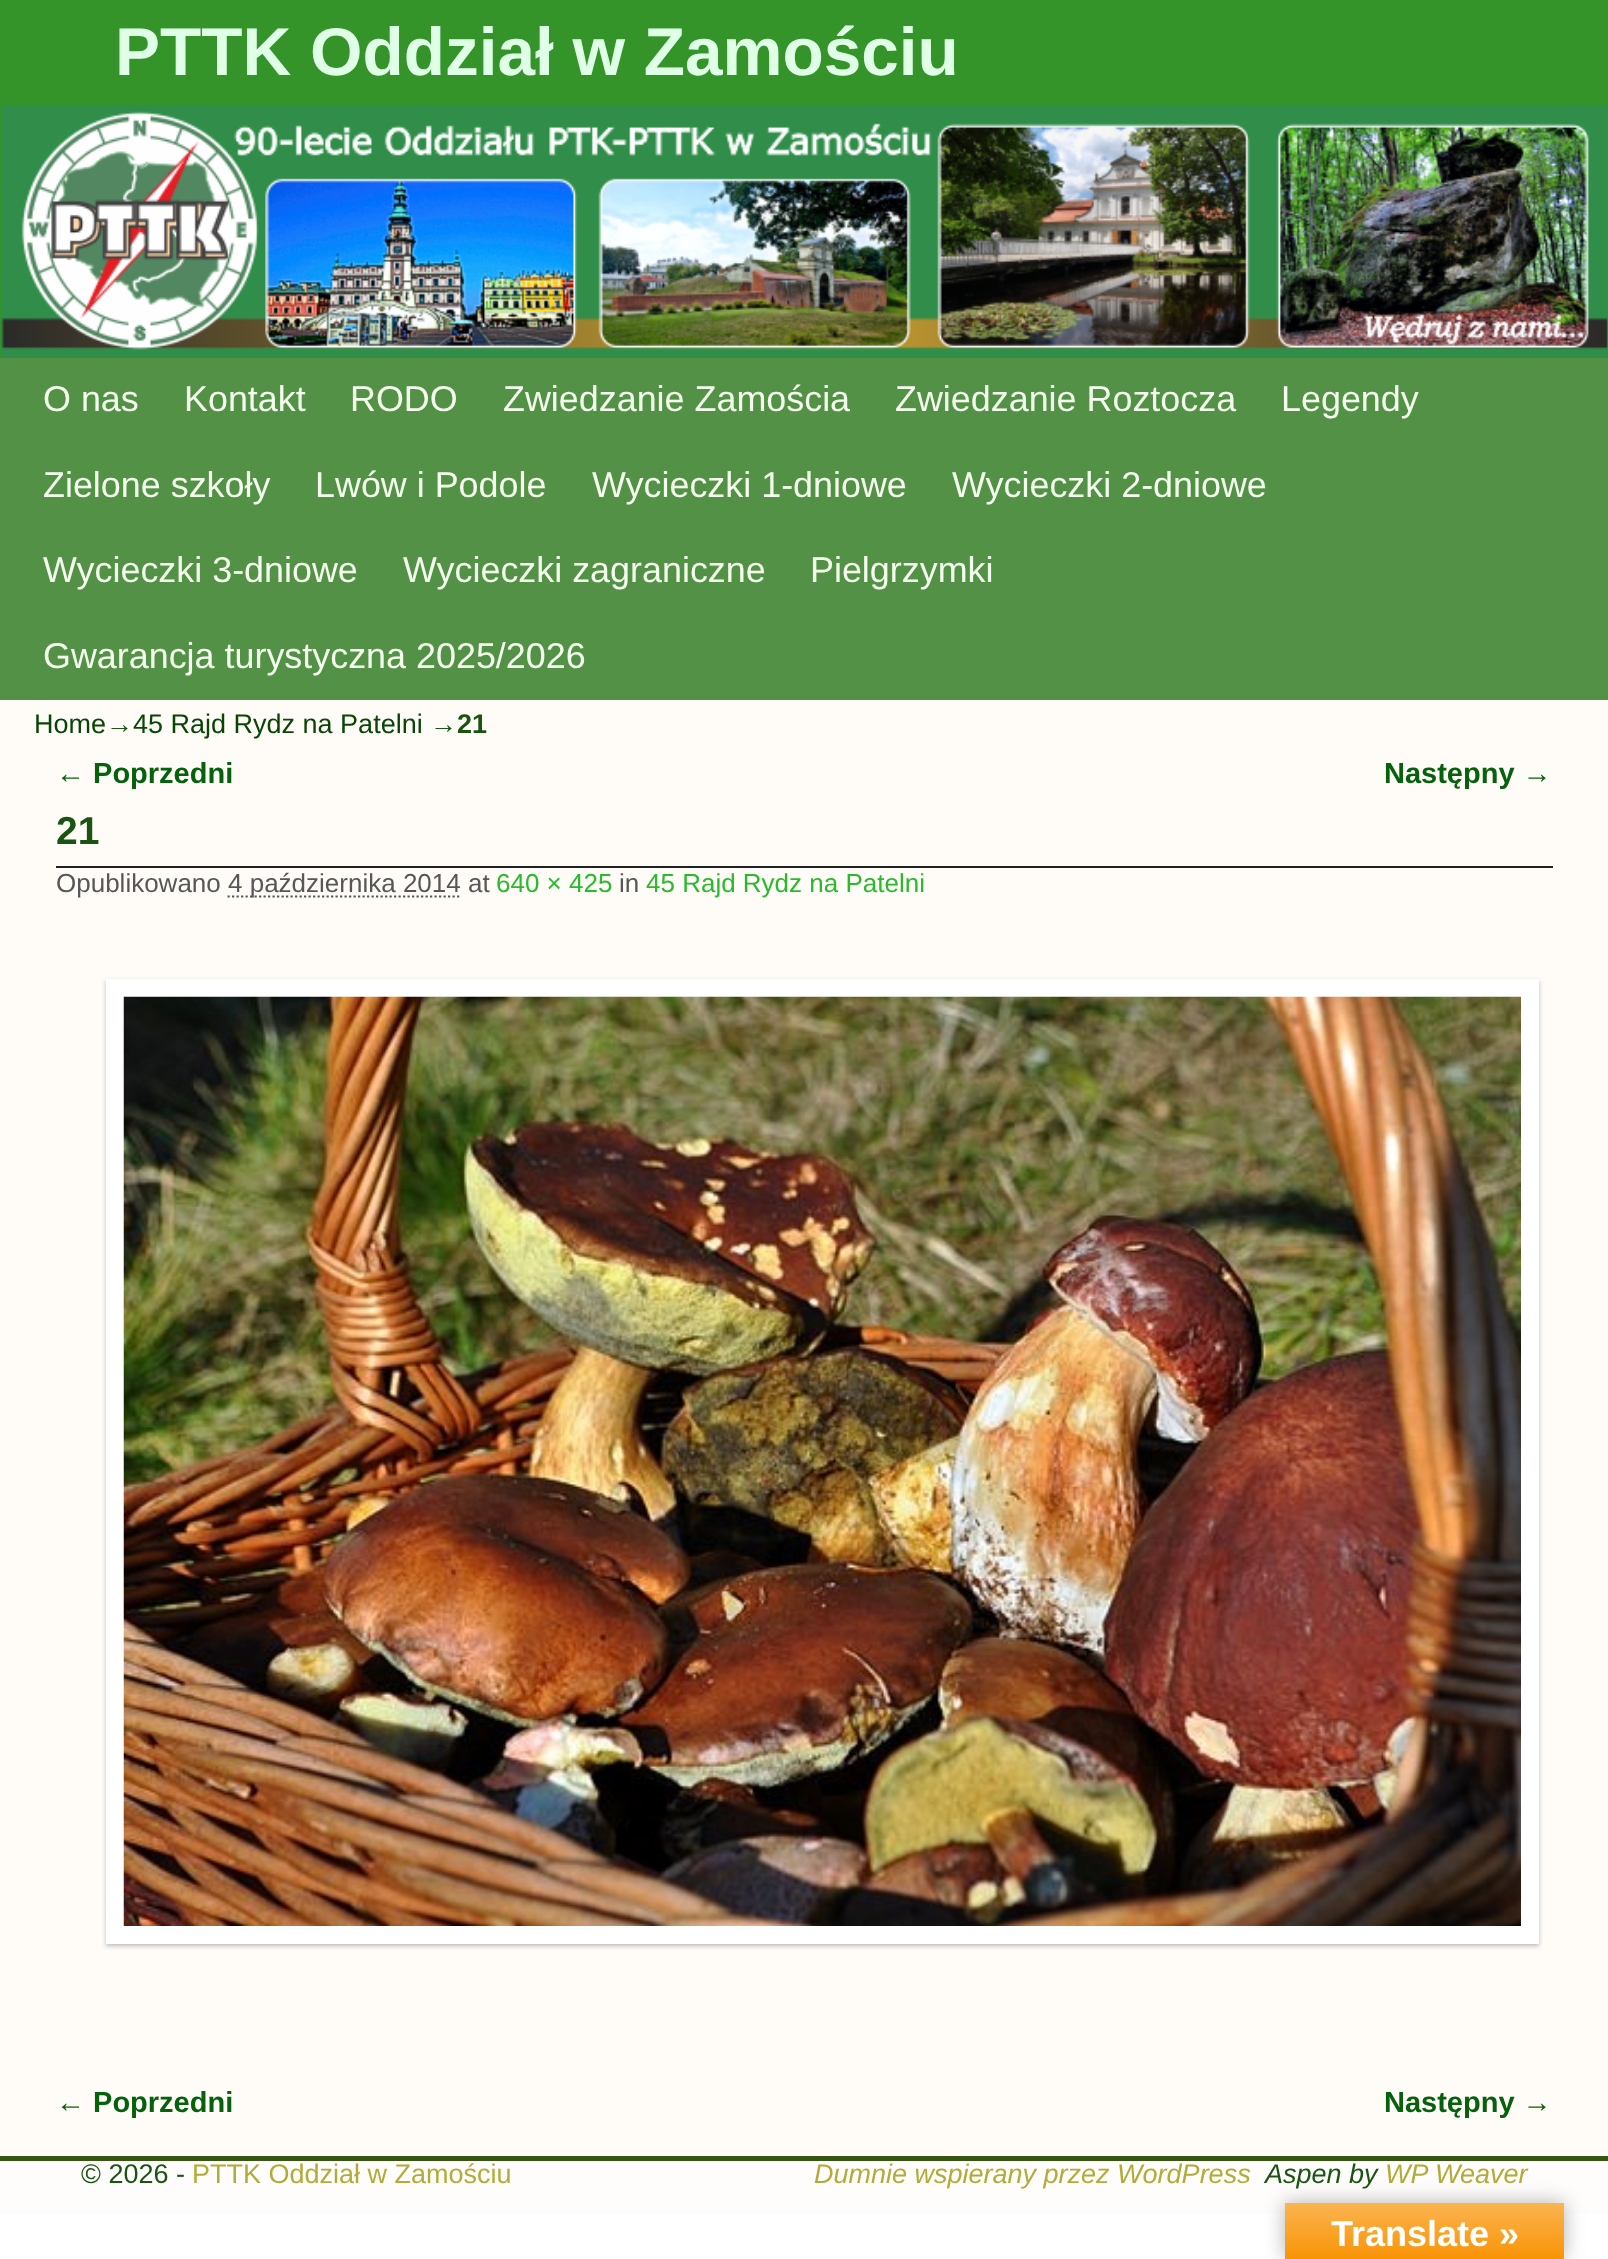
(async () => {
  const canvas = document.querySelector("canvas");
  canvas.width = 1608;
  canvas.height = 2259;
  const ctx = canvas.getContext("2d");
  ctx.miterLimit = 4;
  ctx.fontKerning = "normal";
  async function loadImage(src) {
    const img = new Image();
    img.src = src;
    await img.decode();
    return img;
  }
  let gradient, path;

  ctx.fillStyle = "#ffffff";
  ctx.fillRect(0, 0, 1608, 2259);
  ctx.fillStyle = "#fffcf7";
  ctx.fillRect(0, 700, 1608, 1456);
  ctx.fillStyle = "#349429";
  ctx.fillRect(0, 0, 1608, 358);
  ctx.drawImage(await loadImage("img/1.png"), 0, 105, 1608, 253);
  ctx.fillStyle = "#539146";
  ctx.fillRect(0, 358, 1608, 342);
  ctx.fillStyle = "#222222";
  ctx.fillRect(56, 866, 1497, 2);
  path = new Path2D("M227.5 896.5H459.5");
  ctx.strokeStyle = "#575757";
  ctx.lineWidth = 2.2;
  ctx.setLineDash([2.25, 2.25]);
  ctx.stroke(path);
  ctx.fillStyle = "#bbbbbb";
  ctx.filter = "blur(2px)";
  ctx.beginPath();
  ctx.rect(106, 981, 1433, 965);
  ctx.fill();
  ctx.filter = "none";
  ctx.fillStyle = "#ffffff";
  ctx.fillRect(106, 979, 1433, 965);
  ctx.drawImage(await loadImage("img/2.png"), 123, 996, 1398, 930);
  ctx.fillStyle = "#fffdfc";
  ctx.fillRect(0, 2161, 1608, 53);
  ctx.fillStyle = "#355711";
  ctx.fillRect(0, 2156, 1608, 5);
  ctx.fillStyle = "rgba(0, 0, 0, 0.3)";
  ctx.filter = "blur(10px)";
  ctx.beginPath();
  ctx.rect(1285, 2203, 279, 56);
  ctx.fill();
  ctx.filter = "none";
  gradient = ctx.createLinearGradient(1424, 2203, 1424, 2259);
  gradient.addColorStop(0, "#fbb450");
  gradient.addColorStop(1, "#f89406");
  ctx.fillStyle = gradient;
  ctx.fillRect(1285, 2203, 279, 56);
  ctx.font = "bold 67.5px Liberation Sans";
  ctx.fillStyle = "#e0ffe7";
  ctx.fillText("PTTK Oddział w Zamościu", 115, 75);
  ctx.font = "35.9px Liberation Sans";
  ctx.fillStyle = "#f5ffed";
  for (const [text, x, y] of [
    ["O nas", 43, 411],
    ["Kontakt", 184, 411],
    ["RODO", 350, 411],
    ["Zwiedzanie Zamościa", 503, 411],
    ["Zwiedzanie Roztocza", 895, 411],
    ["Legendy", 1281, 411],
    ["Zielone szkoły", 43, 497],
    ["Lwów i Podole", 315, 497],
    ["Wycieczki 1-dniowe", 592, 497],
    ["Wycieczki 2-dniowe", 952, 497],
    ["Wycieczki 3-dniowe", 43, 582],
    ["Wycieczki zagraniczne", 403, 582],
    ["Pielgrzymki", 810, 582],
    ["Gwarancja turystyczna 2025/2026", 43, 668],
  ]) {
    ctx.fillText(text, x, y);
  }
  ctx.font = "27px Liberation Sans";
  ctx.fillStyle = "#0a4508";
  ctx.fillText("Home", 34, 733);
  ctx.fillStyle = "#195412";
  ctx.fillText("→", 106, 733);
  ctx.fillStyle = "#0a4508";
  ctx.fillText("45 Rajd Rydz na Patelni", 133, 733);
  ctx.fillStyle = "#195412";
  ctx.fillText("→", 430, 733);
  ctx.font = "bold 27px Liberation Sans";
  ctx.fillText("21", 457, 733);
  ctx.font = "bold 29px Liberation Sans";
  ctx.fillStyle = "#06610c";
  ctx.fillText("← Poprzedni", 56, 783);
  ctx.fillText("Następny →", 1384, 783);
  ctx.font = "bold 39px Liberation Sans";
  ctx.fillStyle = "#195412";
  ctx.fillText("21", 56, 844);
  ctx.font = "26px Liberation Sans";
  ctx.fillStyle = "#575757";
  ctx.fillText("Opublikowano", 56, 892);
  ctx.fillText("4 października 2014 at", 228, 892);
  ctx.fillStyle = "#29ba2e";
  ctx.fillText("640 × 425", 496, 892);
  ctx.fillStyle = "#575757";
  ctx.fillText("in", 619, 892);
  ctx.fillStyle = "#29ba2e";
  ctx.fillText("45 Rajd Rydz na Patelni", 646, 892);
  ctx.font = "bold 29px Liberation Sans";
  ctx.fillStyle = "#06610c";
  ctx.fillText("← Poprzedni", 56, 2112);
  ctx.fillText("Następny →", 1384, 2112);
  ctx.font = "27px Liberation Sans";
  ctx.fillStyle = "#195412";
  ctx.fillText("© 2026 -", 81, 2183);
  ctx.fillStyle = "#b3ab39";
  ctx.fillText("PTTK Oddział w Zamościu", 192, 2183);
  ctx.font = "italic 27px Liberation Sans";
  ctx.fillText("Dumnie wspierany przez WordPress", 814, 2183);
  ctx.fillStyle = "#195412";
  ctx.fillText("Aspen by", 1265, 2183);
  ctx.fillStyle = "#b3ab39";
  ctx.fillText("WP Weaver", 1385, 2183);
  ctx.font = "bold 36px Liberation Sans";
  ctx.fillStyle = "#ffffff";
  ctx.fillText("Translate »", 1331, 2246);
})();
